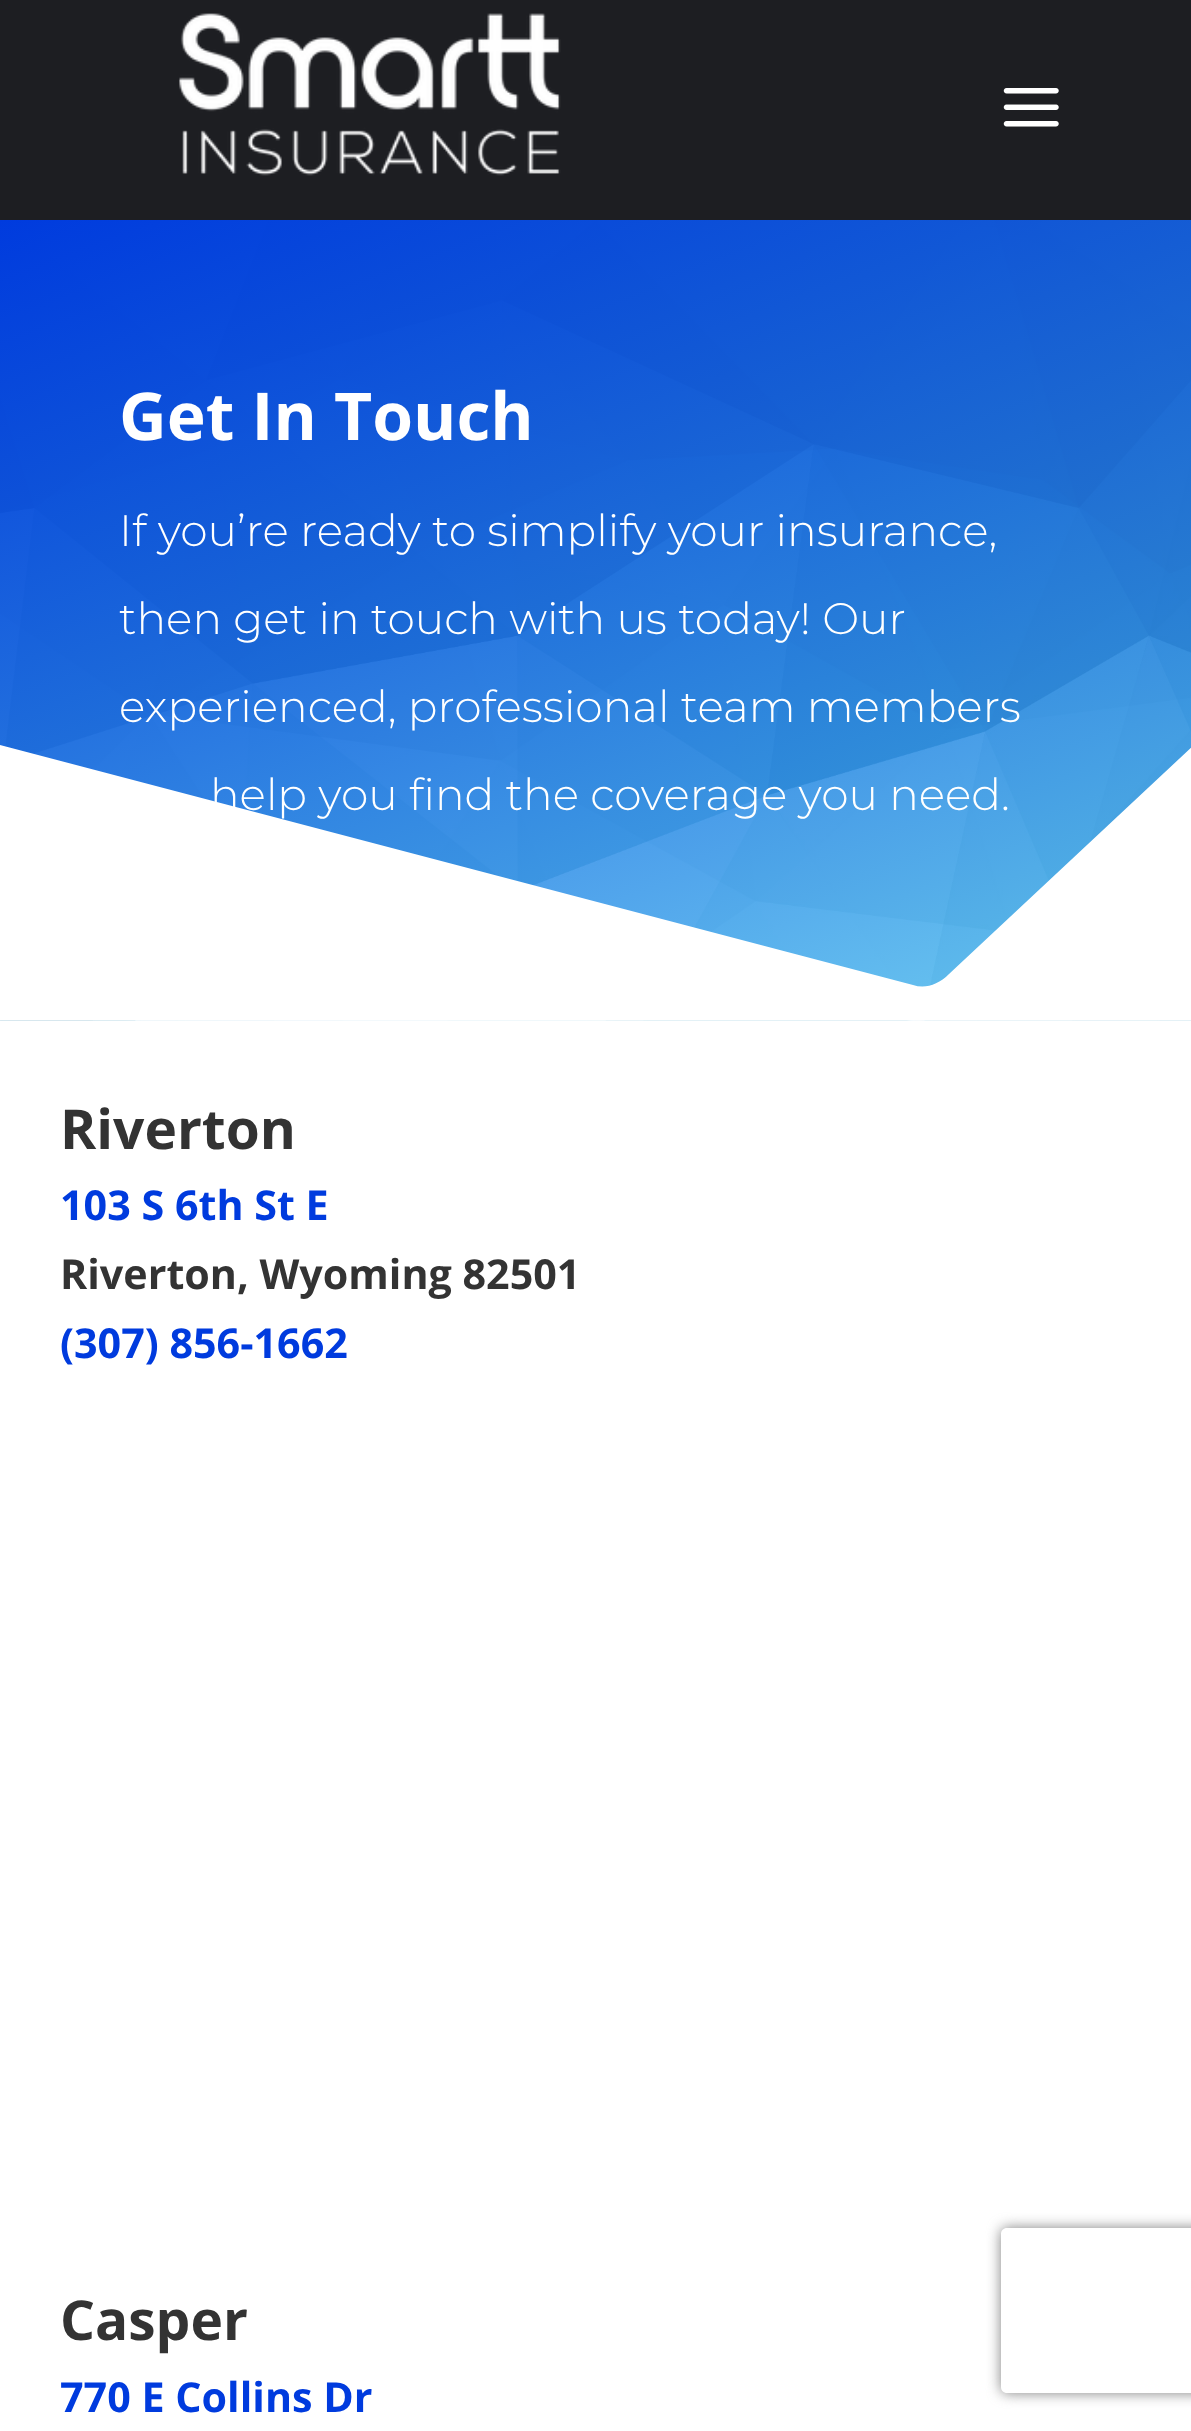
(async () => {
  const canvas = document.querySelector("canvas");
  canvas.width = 1191;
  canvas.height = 2431;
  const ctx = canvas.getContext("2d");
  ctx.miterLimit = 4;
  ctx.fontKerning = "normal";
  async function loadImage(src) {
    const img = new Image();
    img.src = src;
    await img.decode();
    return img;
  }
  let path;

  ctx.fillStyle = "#ffffff";
  ctx.fillRect(0, 0, 1191, 2431);
  ctx.fillStyle = "#1d1e22";
  ctx.fillRect(0, 0, 1191, 220);
  ctx.drawImage(await loadImage("img/1.png"), 179, 13, 382, 163);
  ctx.drawImage(await loadImage("img/2.png"), 1003, 88, 56, 39);
  ctx.drawImage(await loadImage("img/3.png"), 0, 220, 1191, 801);
  ctx.fillStyle = "#ffffff";
  path = new Path2D("M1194 745L949 974C938 985 925 989 913 985L0 745V1020H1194Z");
  ctx.fill(path);
  ctx.save();
  path = new Path2D("M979 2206H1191V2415H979ZM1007 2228H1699C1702.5 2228 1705 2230.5 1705 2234V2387C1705 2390.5 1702.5 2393 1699 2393H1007C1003.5 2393 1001 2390.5 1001 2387V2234C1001 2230.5 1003.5 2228 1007 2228Z");
  ctx.clip(path, "evenodd");
  ctx.fillStyle = "#808080";
  ctx.filter = "blur(7px)";
  ctx.beginPath();
  ctx.roundRect(1001, 2228, 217, 165, 6);
  ctx.fill();
  ctx.filter = "none";
  ctx.restore();
  ctx.font = "bold 66px Open Sans";
  ctx.fillText("Get In Touch", 119, 440);
  ctx.font = "100 44px Montserrat";
  for (const [text, x, y] of [
    ["If you’re ready to simplify your insurance,", 119, 546],
    ["then get in touch with us today! Our", 119, 634],
    ["experienced, professional team members", 119, 722],
    ["help you find the coverage you need.", 210, 810],
  ]) {
    ctx.fillText(text, x, y);
  }
  ctx.font = "bold 55px Open Sans";
  ctx.fillStyle = "#333333";
  ctx.fillText("Riverton", 60, 1149);
  ctx.font = "bold 41.25px Open Sans";
  ctx.fillStyle = "#003bde";
  ctx.fillText("103 S 6th St E", 60, 1220);
  ctx.fillStyle = "#333333";
  ctx.fillText("Riverton, Wyoming 82501", 60, 1289);
  ctx.fillStyle = "#003bde";
  ctx.fillText("(307) 856-1662", 60, 1358);
  ctx.font = "bold 55px Open Sans";
  ctx.fillStyle = "#333333";
  ctx.fillText("Casper", 60, 2340);
  ctx.font = "bold 41.25px Open Sans";
  ctx.fillStyle = "#003bde";
  ctx.fillText("770 E Collins Dr", 60, 2412);
})();
